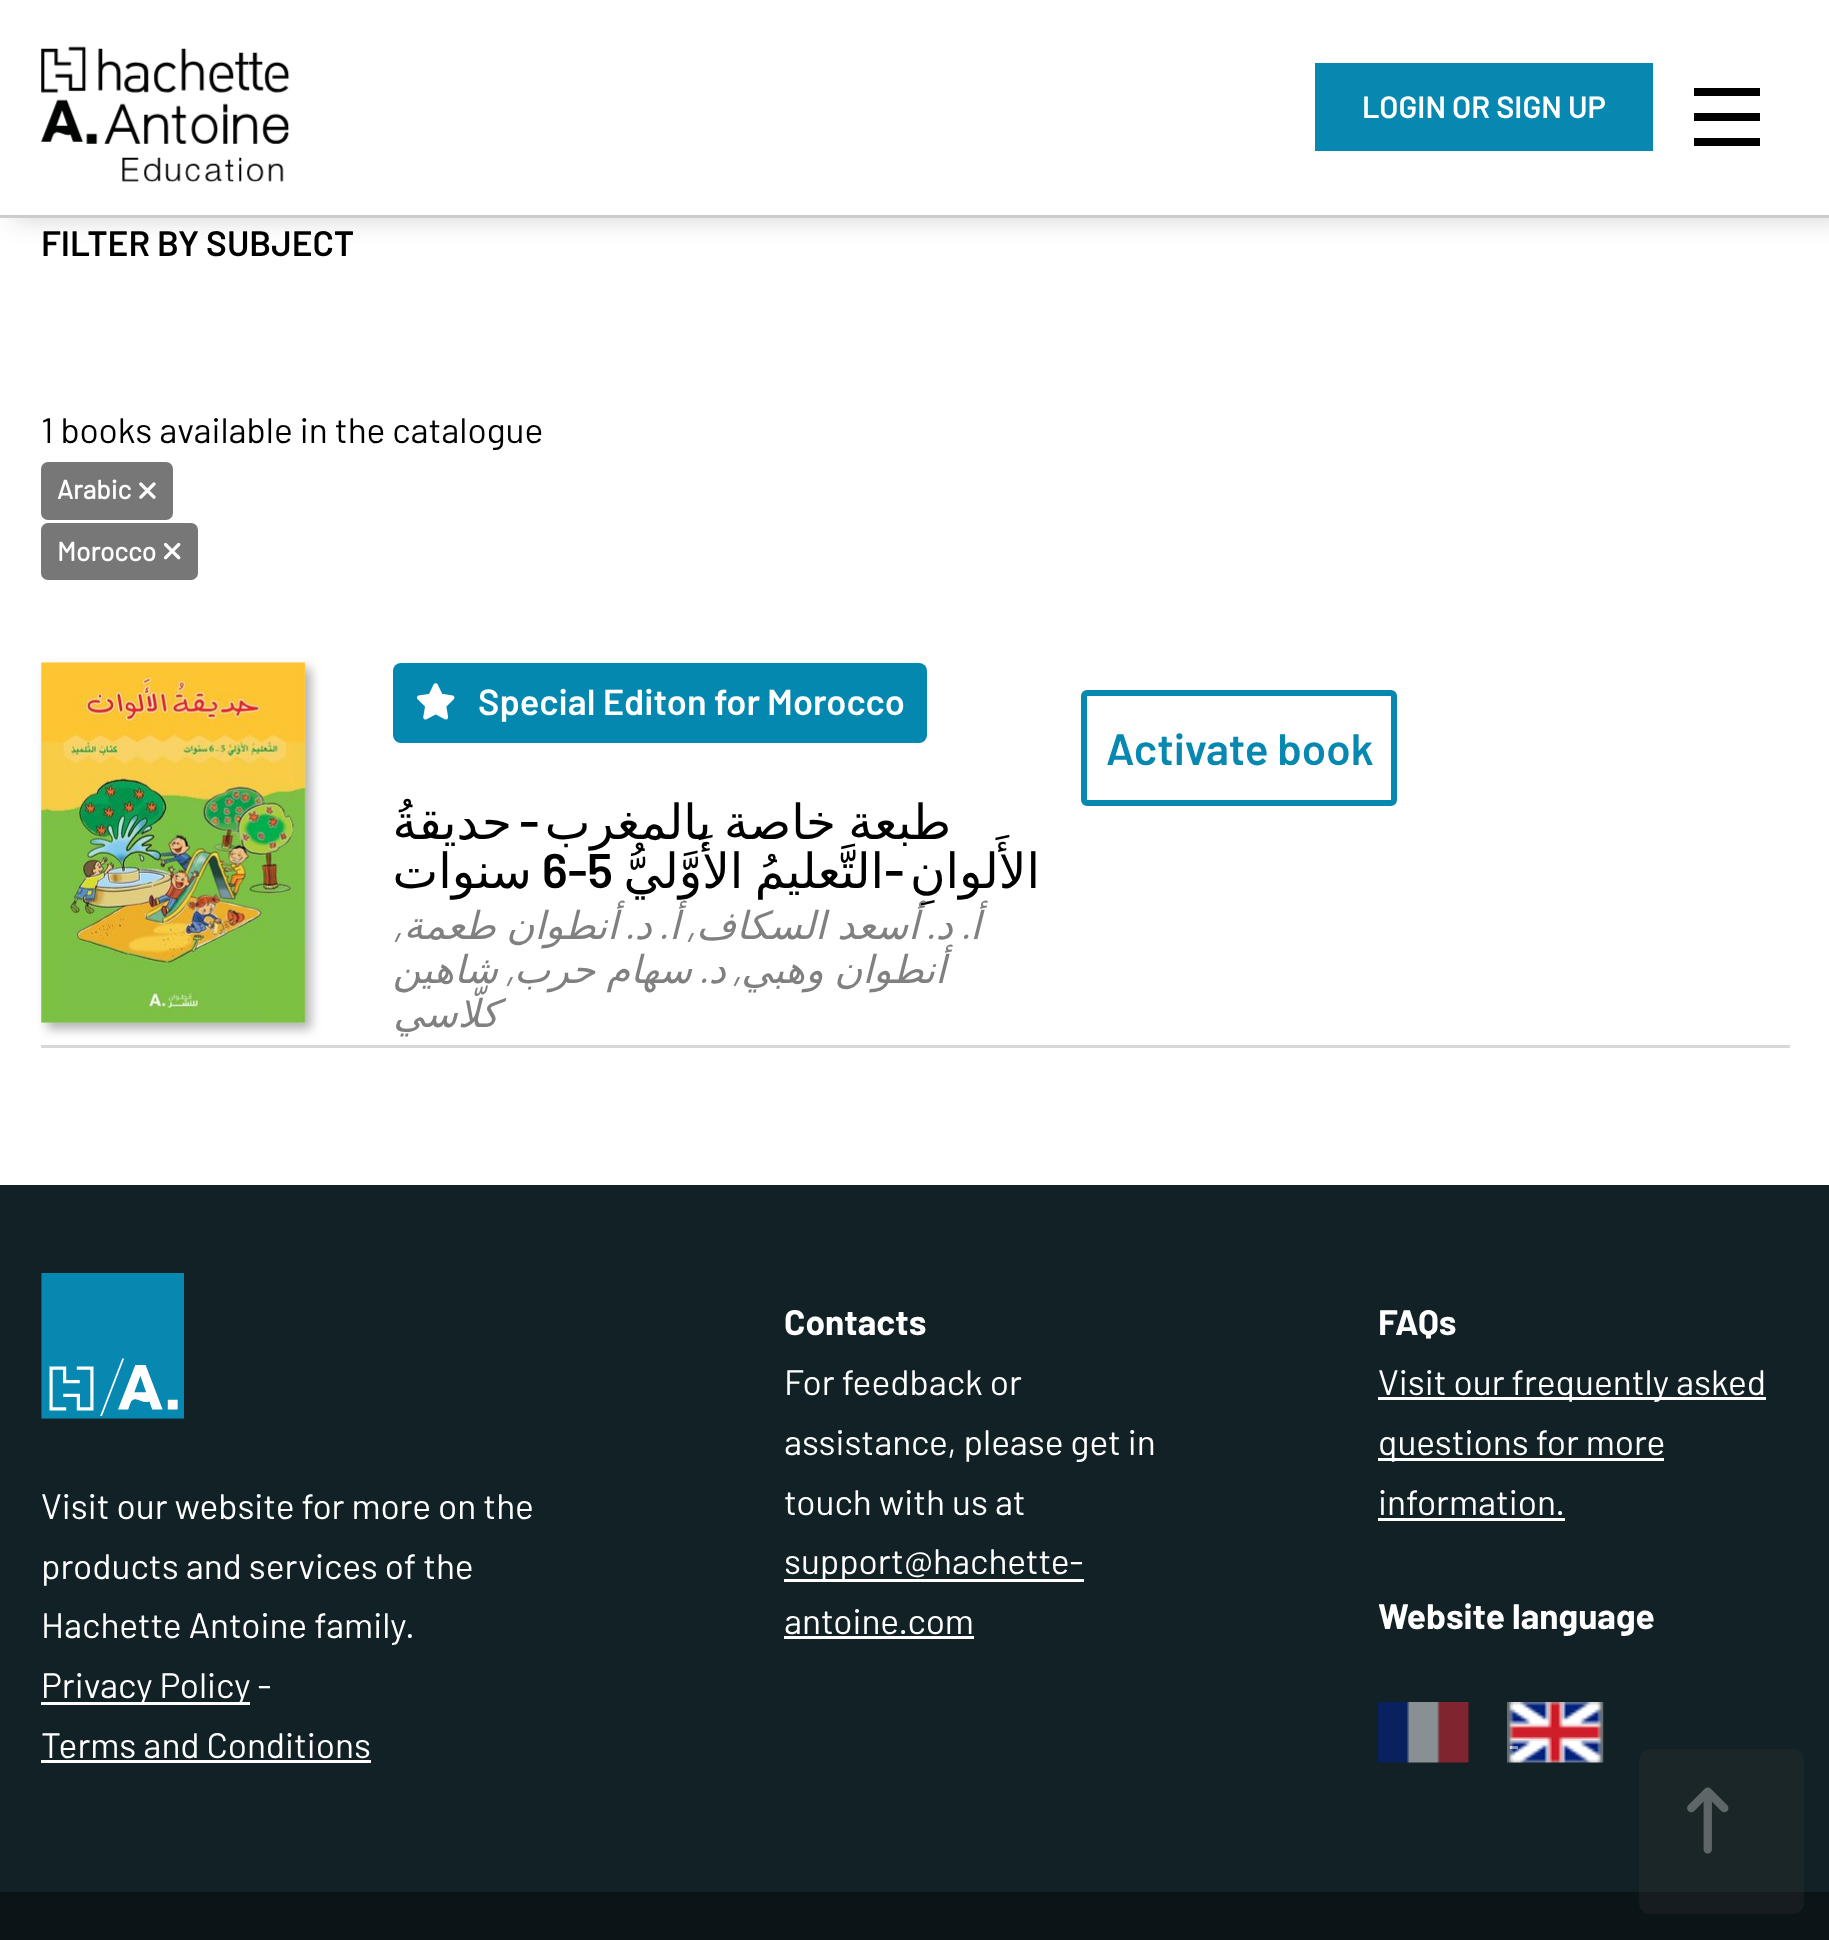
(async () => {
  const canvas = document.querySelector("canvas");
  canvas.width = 1829;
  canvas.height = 1940;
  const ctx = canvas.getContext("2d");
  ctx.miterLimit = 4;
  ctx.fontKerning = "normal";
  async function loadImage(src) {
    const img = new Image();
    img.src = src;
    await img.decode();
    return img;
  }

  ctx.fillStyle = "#ffffff";
  ctx.fillRect(0, 0, 1829, 1940);
  ctx.fillStyle = "rgba(0, 0, 0, 0.2)";
  ctx.filter = "blur(14px)";
  ctx.beginPath();
  ctx.rect(14, -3, 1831, 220);
  ctx.fill();
  ctx.filter = "none";
  ctx.fillStyle = "#ffffff";
  ctx.fillRect(0, 0, 1829, 215);
  ctx.fillStyle = "#cccccc";
  ctx.fillRect(0, 215, 1829, 3);
  ctx.drawImage(await loadImage("img/1.png"), 41, 46, 249, 136);
  for (const [x, y, w, h, color] of [
    [1315, 63, 338, 88, "#0688b1"],
    [1694, 88, 66, 8, "#000000"],
    [1694, 113, 66, 8, "#000000"],
    [1694, 138, 66, 8, "#000000"],
  ]) {
    ctx.fillStyle = color;
    ctx.fillRect(x, y, w, h);
  }
  ctx.fillStyle = "#777777";
  ctx.beginPath();
  ctx.roundRect(41, 462, 132, 58, 7);
  ctx.fill();
  ctx.drawImage(await loadImage("img/2.png"), 139, 482, 17, 17);
  ctx.beginPath();
  ctx.roundRect(41, 523, 157, 57, 7);
  ctx.fill();
  ctx.drawImage(await loadImage("img/3.png"), 163, 542, 18, 18);
  ctx.fillStyle = "#d8d8d8";
  ctx.fillRect(41, 1045, 1749, 3);
  ctx.fillStyle = "#b3b3b3";
  ctx.filter = "blur(5.5px)";
  ctx.beginPath();
  ctx.rect(47, 668, 264, 361);
  ctx.fill();
  ctx.filter = "none";
  ctx.drawImage(await loadImage("img/4.png"), 41, 662, 265, 361);
  ctx.fillStyle = "#0588b0";
  ctx.beginPath();
  ctx.roundRect(393, 663, 534, 80, 8);
  ctx.fill();
  ctx.drawImage(await loadImage("img/5.png"), 417, 683, 38, 37);
  ctx.beginPath();
  ctx.roundRect(1084, 693, 310, 110, 3);
  ctx.strokeStyle = "#0688b1";
  ctx.lineWidth = 6;
  ctx.stroke();
  ctx.fillStyle = "#122126";
  ctx.fillRect(0, 1185, 1829, 707);
  ctx.drawImage(await loadImage("img/6.png"), 41, 1273, 143, 146);
  for (const [x, y, w, h, color] of [
    [41, 1702, 209, 3, "#ffffff"],
    [41, 1760, 330, 3, "#ffffff"],
    [784, 1579, 300, 3, "#ffffff"],
    [784, 1636, 190, 3, "#ffffff"],
    [1378, 1397, 388, 3, "#ffffff"],
    [1378, 1458, 286, 3, "#ffffff"],
    [1378, 1518, 187, 3, "#ffffff"],
  ]) {
    ctx.fillStyle = color;
    ctx.fillRect(x, y, w, h);
  }
  ctx.drawImage(await loadImage("img/8.png"), 1507, 1702, 97, 61);
  ctx.drawImage(await loadImage("img/7.png"), 1377, 1702, 135, 61);
  ctx.fillStyle = "rgba(255, 255, 255, 0.5)";
  ctx.fillRect(1510, 1746, 8, 3);
  ctx.fillStyle = "#0b1417";
  ctx.fillRect(0, 1892, 1829, 48);
  ctx.fillStyle = "rgba(51, 51, 51, 0.3)";
  ctx.beginPath();
  ctx.roundRect(1639, 1749, 165, 165, 11);
  ctx.fill();
  ctx.drawImage(await loadImage("img/9.png"), 1687, 1787, 42, 67);
  ctx.font = "600 30.75px Barlow";
  ctx.fillStyle = "#ffffff";
  ctx.fillText("LOGIN OR SIGN UP", 1362, 118);
  ctx.font = "600 35.25px Barlow";
  ctx.fillStyle = "#000000";
  ctx.fillText("FILTER BY SUBJECT", 41, 256);
  ctx.font = "35.25px Barlow";
  ctx.fillText("1 books available in the catalogue", 41, 443);
  ctx.font = "bold 26.5px Barlow";
  ctx.fillStyle = "#ffffff";
  ctx.fillText("Arabic", 57, 499);
  ctx.fillText("Morocco", 57, 561);
  ctx.font = "600 36.25px Barlow";
  ctx.fillText("Special Editon for", 478, 715);
  ctx.fillText("Morocco", 767, 715);
  ctx.direction = "rtl";
  ctx.font = "48.5px DejaVu Sans";
  ctx.fillStyle = "#000000";
  ctx.fillText("حديقةُ", 512, 839);
  ctx.font = "600 48.5px Barlow";
  ctx.fillText("-", 539, 839);
  ctx.wordSpacing = "-3px";
  ctx.font = "48.5px DejaVu Sans";
  ctx.fillText("طبعة خاصة بالمغرب", 951, 839);
  ctx.wordSpacing = "0px";
  ctx.fillText("سنوات", 532, 888);
  ctx.direction = "ltr";
  ctx.font = "600 48.5px Barlow";
  ctx.fillText("6-5", 542, 888);
  ctx.wordSpacing = "-4px";
  ctx.direction = "rtl";
  ctx.font = "48.5px DejaVu Sans";
  ctx.fillText("التَّعليمُ الأَوَّليُّ", 884, 888);
  ctx.wordSpacing = "0px";
  ctx.font = "600 48.5px Barlow";
  ctx.fillText("-", 904, 888);
  ctx.font = "48.5px DejaVu Sans";
  ctx.fillText("الأَلوانِ", 1040, 888);
  ctx.font = "italic 38.5px Barlow";
  ctx.fillStyle = "#808080";
  ctx.fillText(",", 403, 939);
  ctx.wordSpacing = "-2px";
  ctx.font = "italic 38.5px DejaVu Sans";
  ctx.fillText("أنطوان طعمة", 618, 939);
  ctx.wordSpacing = "0px";
  ctx.font = "italic 38.5px Barlow";
  ctx.fillText(".", 635, 939);
  ctx.font = "italic 38.5px DejaVu Sans";
  ctx.fillText("د", 652, 939);
  ctx.font = "italic 38.5px Barlow";
  ctx.fillText(".", 669, 939);
  ctx.font = "italic 38.5px DejaVu Sans";
  ctx.fillText("أ", 680, 939);
  ctx.font = "italic 38.5px Barlow";
  ctx.fillText(",", 696, 939);
  ctx.wordSpacing = "-1px";
  ctx.font = "italic 38.5px DejaVu Sans";
  ctx.fillText("أسعد السكاف", 919, 939);
  ctx.wordSpacing = "0px";
  ctx.font = "italic 38.5px Barlow";
  ctx.fillText(".", 936, 939);
  ctx.font = "italic 38.5px DejaVu Sans";
  ctx.fillText("د", 953, 939);
  ctx.font = "italic 38.5px Barlow";
  ctx.fillText(".", 971, 939);
  ctx.font = "italic 38.5px DejaVu Sans";
  ctx.fillText("أ", 981, 939);
  ctx.fillText("شاهين", 498, 983);
  ctx.font = "italic 38.5px Barlow";
  ctx.fillText(",", 515, 983);
  ctx.wordSpacing = "-1px";
  ctx.font = "italic 38.5px DejaVu Sans";
  ctx.fillText("سهام حرب", 692, 983);
  ctx.wordSpacing = "0px";
  ctx.font = "italic 38.5px Barlow";
  ctx.fillText(".", 709, 983);
  ctx.font = "italic 38.5px DejaVu Sans";
  ctx.fillText("د", 726, 983);
  ctx.font = "italic 38.5px Barlow";
  ctx.fillText(",", 742, 983);
  ctx.wordSpacing = "-2px";
  ctx.font = "italic 38.5px DejaVu Sans";
  ctx.fillText("أنطوان وهبي", 946, 983);
  ctx.wordSpacing = "0px";
  ctx.fillText("كلّاسي", 499, 1027);
  ctx.direction = "ltr";
  ctx.font = "600 44px Barlow";
  ctx.fillStyle = "#0688b1";
  ctx.fillText("Activate book", 1106, 765);
  ctx.font = "35.25px Barlow";
  ctx.fillStyle = "#ffffff";
  for (const [text, x, y] of [
    ["Visit our website for more on the", 41, 1519],
    ["products and services of the", 41, 1579],
    ["Hachette Antoine family.", 41, 1638],
    ["Privacy Policy -", 41, 1698],
    ["Terms and Conditions", 41, 1758],
  ]) {
    ctx.fillText(text, x, y);
  }
  ctx.font = "bold 35.25px 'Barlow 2'";
  ctx.fillText("Contacts", 784, 1335);
  ctx.font = "35.25px Barlow";
  for (const [text, x, y] of [
    ["For feedback or", 784, 1395],
    ["assistance, please get in", 784, 1455],
    ["touch with us at", 784, 1515],
    ["support@hachette-", 784, 1574],
    ["antoine.com", 784, 1634],
  ]) {
    ctx.fillText(text, x, y);
  }
  ctx.font = "bold 35.25px 'Barlow 2'";
  ctx.fillText("FAQs", 1378, 1335);
  ctx.font = "35.25px Barlow";
  for (const [text, x, y] of [
    ["Visit our frequently asked", 1378, 1395],
    ["questions for more", 1378, 1455],
    ["information.", 1378, 1515],
  ]) {
    ctx.fillText(text, x, y);
  }
  ctx.font = "bold 35.25px 'Barlow 2'";
  ctx.fillText("Website language", 1378, 1629);
})();
